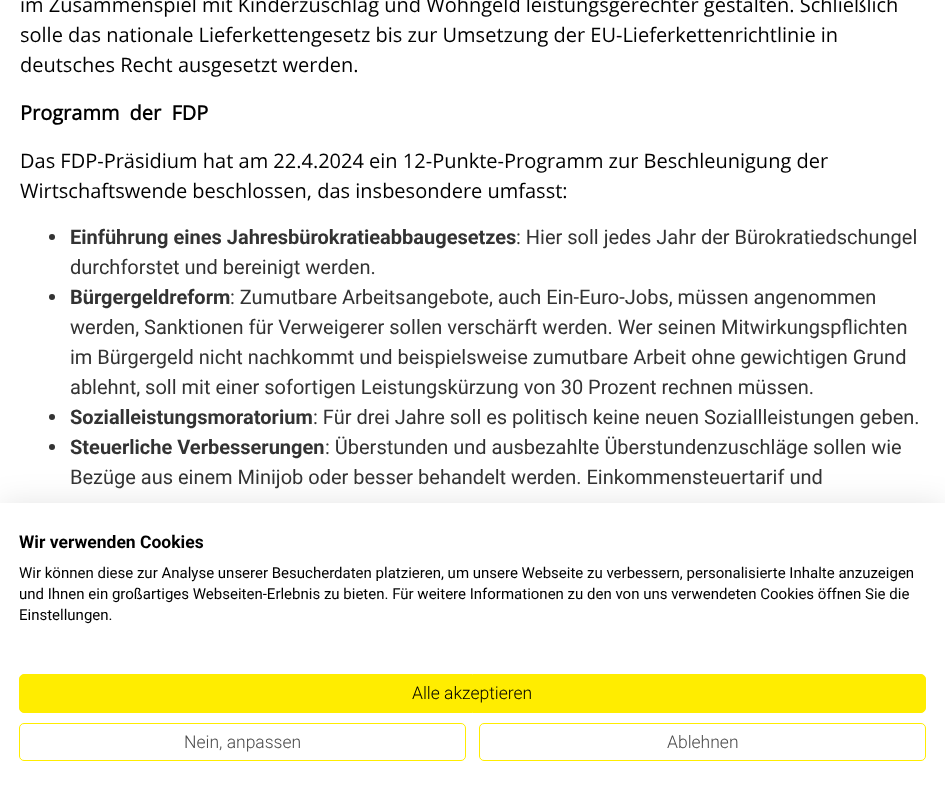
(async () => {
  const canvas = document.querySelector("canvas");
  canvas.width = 945;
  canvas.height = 795;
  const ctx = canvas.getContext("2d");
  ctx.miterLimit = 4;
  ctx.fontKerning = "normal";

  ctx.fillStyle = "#ffffff";
  ctx.fillRect(0, 0, 945, 795);
  ctx.fillStyle = "#333333";
  ctx.beginPath();
  ctx.arc(52, 237, 3, 0, Math.PI * 2);
  ctx.fill();
  ctx.beginPath();
  ctx.arc(52, 297, 3, 0, Math.PI * 2);
  ctx.fill();
  ctx.beginPath();
  ctx.arc(52, 417, 3, 0, Math.PI * 2);
  ctx.fill();
  ctx.beginPath();
  ctx.arc(52, 447, 3, 0, Math.PI * 2);
  ctx.fill();
  ctx.fillStyle = "rgba(0, 0, 0, 0.1)";
  ctx.filter = "blur(15px)";
  ctx.beginPath();
  ctx.rect(0, 503, 945, 292);
  ctx.fill();
  ctx.filter = "none";
  ctx.fillStyle = "#ffffff";
  ctx.fillRect(0, 503, 945, 292);
  ctx.fillStyle = "#ffed00";
  ctx.beginPath();
  ctx.roundRect(19.5, 674.5, 906, 38, 4.5);
  ctx.fill();
  ctx.strokeStyle = "#ffed00";
  ctx.stroke();
  ctx.beginPath();
  ctx.roundRect(19.5, 723.5, 446, 37, 4.5);
  ctx.stroke();
  ctx.beginPath();
  ctx.roundRect(479.5, 723.5, 446, 37, 4.5);
  ctx.stroke();
  ctx.font = "20px Open Sans";
  ctx.fillStyle = "#000000";
  for (const [text, x, y] of [
    ["im Zusammenspiel mit Kinderzuschlag und Wohngeld leistungsgerechter gestalten. Schließlich", 20, 12],
    ["solle das nationale Lieferkettengesetz bis zur Umsetzung der EU-Lieferkettenrichtlinie in", 20, 42],
    ["deutsches Recht ausgesetzt werden.", 20, 72],
  ]) {
    ctx.fillText(text, x, y);
  }
  ctx.wordSpacing = "5px";
  ctx.font = "bold 20px Open Sans";
  ctx.fillText("Programm der FDP", 20, 120);
  ctx.wordSpacing = "0px";
  ctx.font = "20px Open Sans";
  ctx.fillText("Das FDP-Präsidium hat am 22.4.2024 ein 12-Punkte-Programm zur Beschleunigung der", 20, 168);
  ctx.fillText("Wirtschaftswende beschlossen, das insbesondere umfasst:", 20, 198);
  ctx.font = "bold 20px Roboto";
  ctx.fillStyle = "#333333";
  ctx.fillText("Einführung eines Jahresbürokratieabbaugesetzes", 70, 244);
  ctx.font = "20px Roboto";
  ctx.fillText(": Hier soll jedes Jahr der Bürokratiedschungel", 516, 244);
  ctx.fillText("durchforstet und bereinigt werden.", 70, 274);
  ctx.font = "bold 20px Roboto";
  ctx.fillText("Bürgergeldreform", 70, 304);
  ctx.font = "20px Roboto";
  for (const [text, x, y] of [
    [": Zumutbare Arbeitsangebote, auch Ein-Euro-Jobs, müssen angenommen", 230, 304],
    ["werden, Sanktionen für Verweigerer sollen verschärft werden. Wer seinen Mitwirkungspflichten", 70, 334],
    ["im Bürgergeld nicht nachkommt und beispielsweise zumutbare Arbeit ohne gewichtigen Grund", 70, 364],
    ["ablehnt, soll mit einer sofortigen Leistungskürzung von 30 Prozent rechnen müssen.", 70, 394],
  ]) {
    ctx.fillText(text, x, y);
  }
  ctx.font = "bold 20px Roboto";
  ctx.fillText("Sozialleistungsmoratorium", 70, 424);
  ctx.font = "20px Roboto";
  ctx.fillText(": Für drei Jahre soll es politisch keine neuen Soziallleistungen geben.", 313, 424);
  ctx.font = "bold 20px Roboto";
  ctx.fillText("Steuerliche Verbesserungen", 70, 454);
  ctx.font = "20px Roboto";
  ctx.fillText(": Überstunden und ausbezahlte Überstundenzuschläge sollen wie", 325, 454);
  ctx.fillText("Bezüge aus einem Minijob oder besser behandelt werden. Einkommensteuertarif und", 70, 484);
  ctx.font = "bold 17.5px Roboto";
  ctx.fillStyle = "#000000";
  ctx.fillText("Wir verwenden Cookies", 19, 548);
  ctx.font = "15px Roboto";
  for (const [text, x, y] of [
    ["Wir können diese zur Analyse unserer Besucherdaten platzieren, um unsere Webseite zu verbessern, personalisierte Inhalte anzuzeigen", 19, 578],
    ["und Ihnen ein großartiges Webseiten-Erlebnis zu bieten. Für weitere Informationen zu den von uns verwendeten Cookies öffnen Sie die", 19, 599],
    ["Einstellungen.", 19, 620],
  ]) {
    ctx.fillText(text, x, y);
  }
  ctx.font = "300 17.5px Roboto";
  ctx.fillText("Alle akzeptieren", 412, 699);
  ctx.fillStyle = "#4a4a4a";
  ctx.fillText("Nein, anpassen", 184, 748);
  ctx.fillText("Ablehnen", 667, 748);
})();
